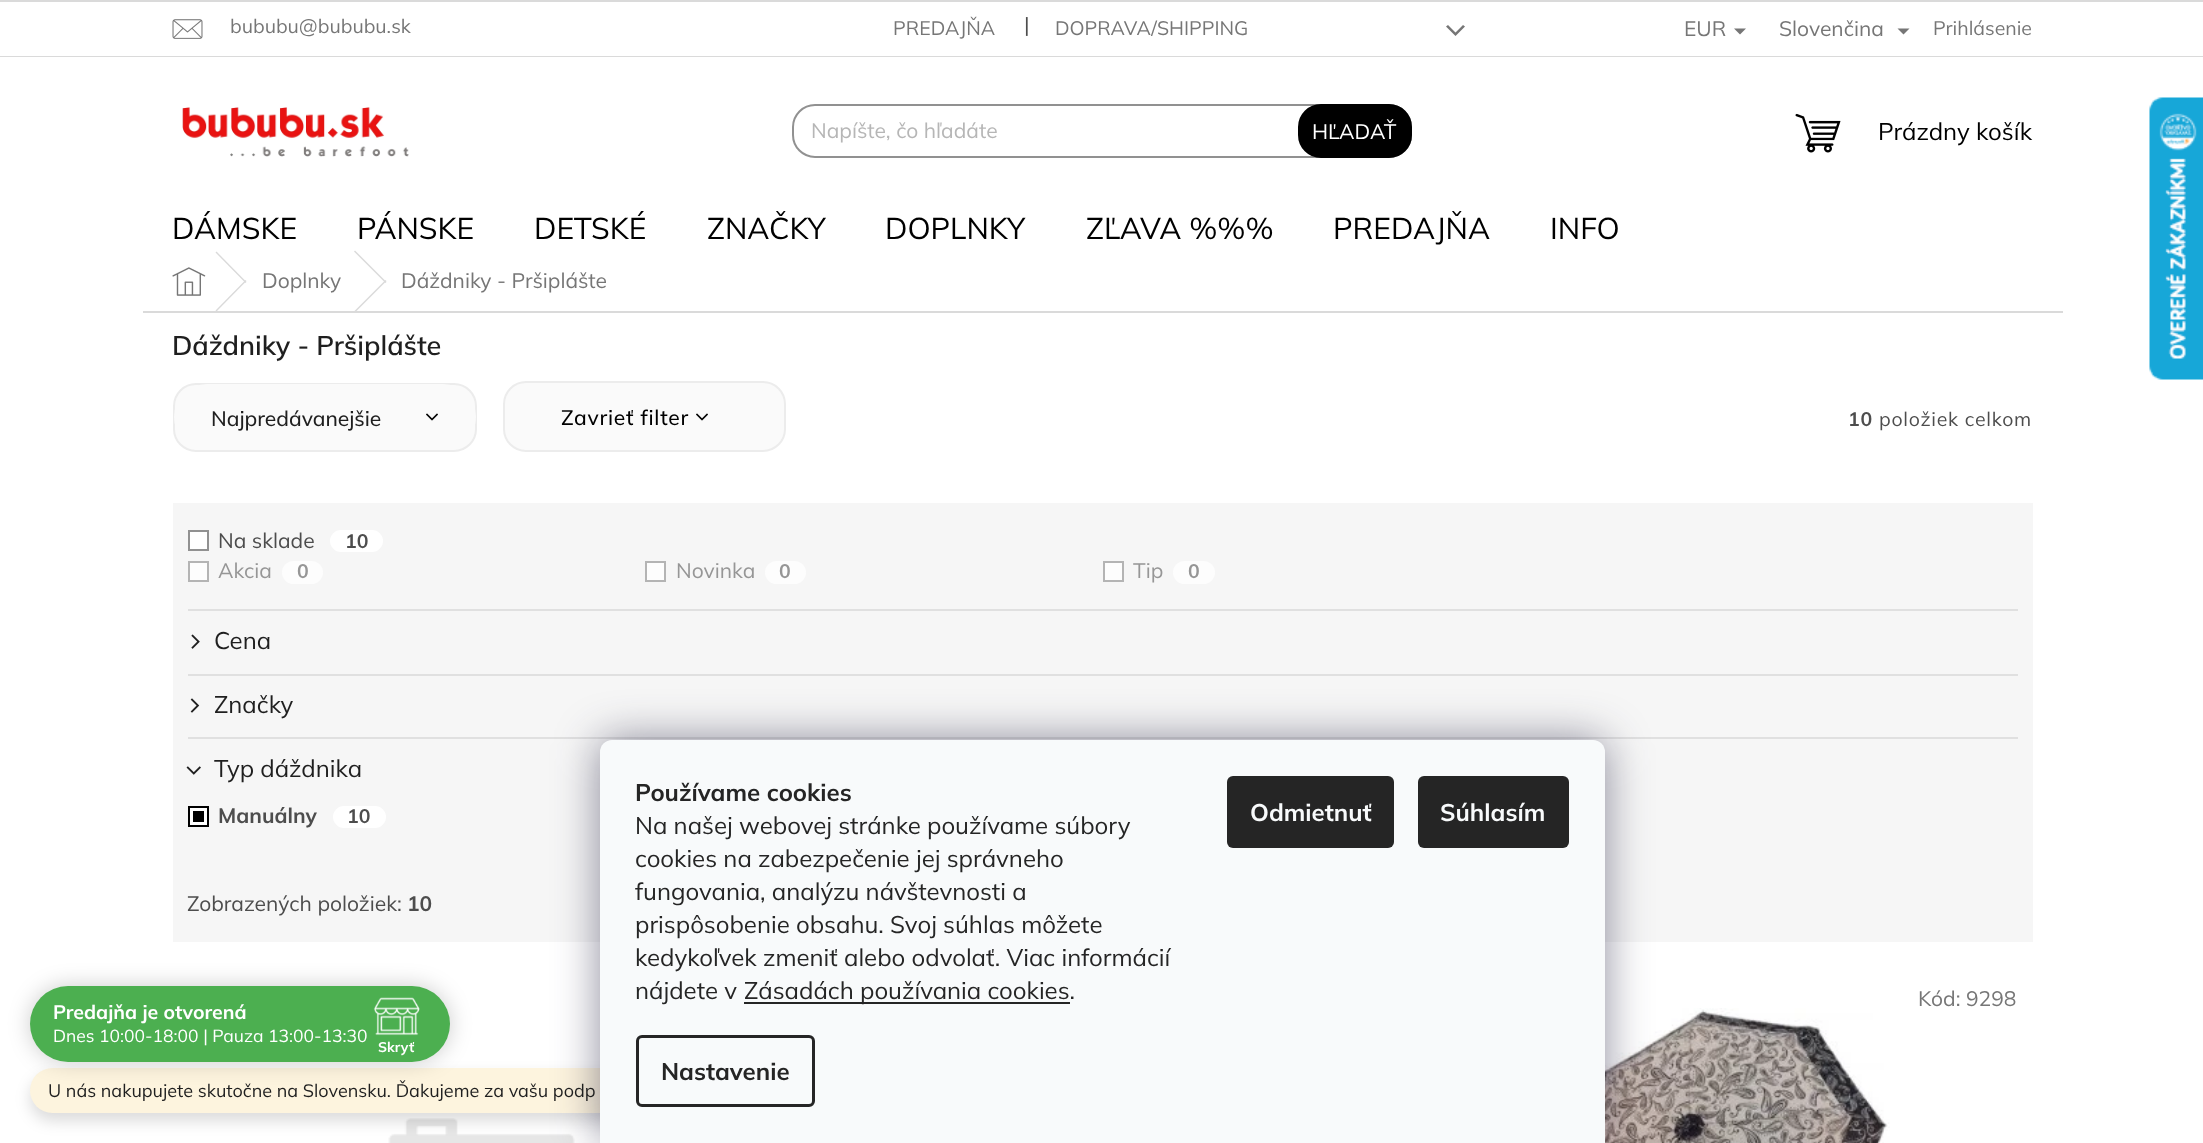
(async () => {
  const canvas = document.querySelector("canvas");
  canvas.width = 2203;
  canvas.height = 1143;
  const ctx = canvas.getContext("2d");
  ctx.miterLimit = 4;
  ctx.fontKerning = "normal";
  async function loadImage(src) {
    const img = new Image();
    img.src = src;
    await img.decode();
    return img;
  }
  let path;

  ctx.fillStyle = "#ffffff";
  ctx.fillRect(0, 0, 2203, 1143);
  ctx.fillStyle = "#dadada";
  ctx.fillRect(0, 0, 2203, 2);
  ctx.fillRect(0, 56, 2203, 1);
  ctx.drawImage(await loadImage("img/1.png"), 172, 19, 31, 20);
  ctx.fillStyle = "#767676";
  path = new Path2D("M1446 26.5L1448 25L1455.5 32.5L1463 25L1465 26.5L1455.5 36Z");
  ctx.fill(path);
  path = new Path2D("M1734 28.5H1746L1740 34.5Z");
  ctx.fill(path);
  path = new Path2D("M1897.5 28.5H1909.5L1903.5 34.5Z");
  ctx.fill(path);
  ctx.drawImage(await loadImage("img/2.png"), 182, 107, 227, 50);
  ctx.beginPath();
  ctx.roundRect(793, 105, 618, 52, 22);
  ctx.strokeStyle = "#919191";
  ctx.lineWidth = 2;
  ctx.stroke();
  ctx.fillStyle = "#000000";
  ctx.beginPath();
  ctx.roundRect(1299, 105, 112, 52, 22);
  ctx.fill();
  ctx.strokeStyle = "#000000";
  ctx.stroke();
  ctx.drawImage(await loadImage("img/3.png"), 1795, 113, 46, 40);
  ctx.fillStyle = "#dadada";
  ctx.fillRect(143, 311, 1920, 2);
  ctx.drawImage(await loadImage("img/4.png"), 172, 267, 34, 29);
  path = new Path2D("M215.5 252.5L216.5 251.5L246.5 282L245.5 283Z");
  ctx.fill(path);
  path = new Path2D("M245.5 280L246.5 281L216.5 311.5L215.5 310.5Z");
  ctx.fill(path);
  path = new Path2D("M354 251.5L355 250.5L386.5 282L385.5 283Z");
  ctx.fill(path);
  path = new Path2D("M385.5 280L386.5 281L355 312.5L354 311.5Z");
  ctx.fill(path);
  ctx.fillStyle = "#fafafa";
  ctx.beginPath();
  ctx.roundRect(504, 382, 281, 69, 22);
  ctx.fill();
  ctx.strokeStyle = "#ececec";
  ctx.stroke();
  ctx.drawImage(await loadImage("img/5.png"), 696, 413, 12, 8);
  ctx.fillStyle = "#f6f6f6";
  ctx.fillRect(173, 503, 1860, 439);
  ctx.fillStyle = "#ffffff";
  ctx.beginPath();
  ctx.rect(189, 531, 19, 19);
  ctx.fill();
  ctx.strokeStyle = "#919191";
  ctx.stroke();
  ctx.beginPath();
  ctx.roundRect(330, 530, 53, 22, 11);
  ctx.fill();
  ctx.fillStyle = "#fdfdfd";
  ctx.beginPath();
  ctx.rect(189, 562, 19, 19);
  ctx.fill();
  ctx.strokeStyle = "#b4b4b4";
  ctx.stroke();
  ctx.beginPath();
  ctx.roundRect(282, 561, 41, 23, 11.5);
  ctx.fill();
  ctx.beginPath();
  ctx.rect(646, 562, 19, 19);
  ctx.fill();
  ctx.stroke();
  ctx.beginPath();
  ctx.roundRect(765, 561, 41, 23, 11.5);
  ctx.fill();
  ctx.beginPath();
  ctx.rect(1104, 562, 19, 19);
  ctx.fill();
  ctx.stroke();
  ctx.beginPath();
  ctx.roundRect(1173, 561, 42, 23, 11.5);
  ctx.fill();
  ctx.fillStyle = "#e0e0e0";
  ctx.fillRect(188, 609, 1830, 2);
  ctx.drawImage(await loadImage("img/6.png"), 191, 634, 9, 15);
  ctx.fillRect(188, 674, 1830, 2);
  ctx.drawImage(await loadImage("img/7.png"), 190, 698, 10, 15);
  ctx.fillRect(188, 737, 1830, 2);
  ctx.drawImage(await loadImage("img/8.png"), 186, 766, 15, 9);
  ctx.fillStyle = "#ffffff";
  ctx.beginPath();
  ctx.rect(189, 807, 19, 19);
  ctx.fill();
  ctx.strokeStyle = "#000000";
  ctx.stroke();
  ctx.beginPath();
  ctx.roundRect(333, 806, 53, 22, 11);
  ctx.fill();
  ctx.fillStyle = "#000000";
  ctx.fillRect(193, 811, 11, 11);
  ctx.fillStyle = "#fafafa";
  ctx.beginPath();
  ctx.roundRect(174, 384, 302, 67, 22);
  ctx.fill();
  ctx.strokeStyle = "#ececec";
  ctx.stroke();
  ctx.beginPath();
  ctx.roundRect(174, 384, 302, 66, 33);
  ctx.fill();
  ctx.drawImage(await loadImage("img/5.png"), 426, 413, 12, 8);
  ctx.drawImage(await loadImage("img/9.png"), 1605, 1008, 285, 135);
  ctx.drawImage(await loadImage("img/10.png"), 388, 1118, 187, 25);
  ctx.fillStyle = "rgba(0, 0, 0, 0.14)";
  ctx.filter = "blur(7.5px)";
  ctx.beginPath();
  ctx.roundRect(30, 1076, 672, 45, 22.5);
  ctx.fill();
  ctx.filter = "none";
  ctx.fillStyle = "#fdf4de";
  ctx.beginPath();
  ctx.roundRect(30, 1068, 672, 45, 22.5);
  ctx.fill();
  ctx.drawImage(await loadImage("img/11.png"), 2149, 97, 54, 283);
  ctx.fillStyle = "rgba(0, 0, 0, 0.2)";
  ctx.filter = "blur(11px)";
  ctx.beginPath();
  ctx.roundRect(30, 986, 420, 76, 38);
  ctx.fill();
  ctx.filter = "none";
  ctx.fillStyle = "#4caf50";
  ctx.beginPath();
  ctx.roundRect(30, 986, 420, 76, 38);
  ctx.fill();
  ctx.drawImage(await loadImage("img/12.png"), 373, 997, 47, 39);
  ctx.fillStyle = "rgba(27, 25, 57, 0.5)";
  ctx.filter = "blur(22.5px)";
  ctx.beginPath();
  ctx.roundRect(600, 740, 1005, 403, 12);
  ctx.fill();
  ctx.filter = "none";
  ctx.fillStyle = "#f8fafb";
  ctx.beginPath();
  ctx.roundRect(600, 740, 1005, 403, [12, 12, 0, 0]);
  ctx.fill();
  ctx.fillStyle = "#252525";
  ctx.fillRect(744, 1002, 326, 2);
  ctx.beginPath();
  ctx.roundRect(637.5, 1036.5, 176, 69, 4.5);
  ctx.strokeStyle = "#252525";
  ctx.lineWidth = 3;
  ctx.stroke();
  ctx.beginPath();
  ctx.roundRect(1227, 776, 167, 72, 6);
  ctx.fill();
  ctx.beginPath();
  ctx.roundRect(1418, 776, 151, 72, 6);
  ctx.fill();
  ctx.font = "19.5px Mulish";
  ctx.fillStyle = "#767676";
  ctx.fillText("bububu@bububu.sk", 230, 33);
  ctx.fillText("PREDAJŇA", 893, 35);
  ctx.font = "21px Mulish";
  ctx.fillStyle = "#4d4d4d";
  ctx.fillText("|", 1024, 32);
  ctx.font = "19.5px Mulish";
  ctx.fillStyle = "#767676";
  ctx.fillText("DOPRAVA/SHIPPING", 1055, 35);
  ctx.font = "21px Mulish";
  ctx.fillText("EUR", 1684, 36);
  ctx.fillText("Slovenčina", 1779, 36);
  ctx.font = "19.5px Mulish";
  ctx.fillText("Prihlásenie", 1933, 35);
  ctx.font = "21px Mulish";
  ctx.fillStyle = "#b6b6b6";
  ctx.fillText("Napíšte, čo hľadáte", 811, 138);
  ctx.fillStyle = "#ffffff";
  ctx.fillText("HĽADAŤ", 1312, 139);
  ctx.font = "24px Mulish";
  ctx.fillStyle = "#000000";
  ctx.fillText("Prázdny košík", 1878, 140);
  ctx.font = "30px Mulish";
  for (const [text, x, y] of [
    ["DÁMSKE", 172, 239],
    ["PÁNSKE", 357, 239],
    ["DETSKÉ", 534, 239],
    ["ZNAČKY", 707, 239],
    ["DOPLNKY", 885, 239],
    ["ZĽAVA %%%", 1086, 239],
    ["PREDAJŇA", 1333, 239],
    ["INFO", 1550, 239],
  ]) {
    ctx.fillText(text, x, y);
  }
  ctx.font = "21px Mulish";
  ctx.fillStyle = "#767676";
  ctx.fillText("Doplnky", 262, 288);
  ctx.fillText("Dáždniky - Pršiplášte", 401, 288);
  ctx.font = "600 27px Mulish";
  ctx.fillStyle = "#1f1f1f";
  ctx.fillText("Dáždniky - Pršiplášte", 172, 355);
  ctx.letterSpacing = "0.75px";
  ctx.font = "500 21px Mulish";
  ctx.fillStyle = "#000000";
  ctx.fillText("Zavrieť filter", 561, 425);
  ctx.letterSpacing = "0px";
  ctx.font = "21px Mulish";
  ctx.fillStyle = "#4d4d4d";
  ctx.fillText("Na sklade", 218, 548);
  ctx.font = "bold 19.5px Mulish";
  ctx.fillText("10", 345, 548);
  ctx.font = "21px Mulish";
  ctx.fillStyle = "#969696";
  ctx.fillText("Akcia", 218, 578);
  ctx.font = "bold 19.5px Mulish";
  ctx.fillText("0", 297, 578);
  ctx.font = "21px Mulish";
  ctx.fillText("Novinka", 676, 578);
  ctx.font = "bold 19.5px Mulish";
  ctx.fillText("0", 779, 578);
  ctx.font = "21px Mulish";
  ctx.fillText("Tip", 1133, 578);
  ctx.font = "bold 19.5px Mulish";
  ctx.fillText("0", 1188, 578);
  ctx.font = "24px Mulish";
  ctx.fillStyle = "#1f1f1f";
  for (const [text, x, y] of [
    ["Cena", 214, 649],
    ["Značky", 214, 713],
    ["Typ dáždnika", 214, 777],
  ]) {
    ctx.fillText(text, x, y);
  }
  ctx.font = "bold 21px Mulish";
  ctx.fillStyle = "#4d4d4d";
  ctx.fillText("Manuálny", 218, 823);
  ctx.font = "bold 19.5px Mulish";
  ctx.fillText("10", 347, 823);
  ctx.font = "21px Mulish";
  ctx.fillText("Zobrazených položiek:", 187, 911);
  ctx.font = "bold 21px Mulish";
  ctx.fillText("10", 407, 911);
  ctx.font = "500 21px Mulish";
  ctx.fillStyle = "#1f1f1f";
  ctx.fillText("Najpredávanejšie", 211, 426);
  ctx.letterSpacing = "0.75px";
  ctx.font = "bold 19.5px Mulish";
  ctx.fillStyle = "#4d4d4d";
  ctx.fillText("10", 1848, 426);
  ctx.font = "19.5px Mulish";
  ctx.fillText("položiek celkom", 1879, 426);
  ctx.letterSpacing = "0px";
  ctx.font = "21px Mulish";
  ctx.fillStyle = "#767676";
  ctx.fillText("Kód: 9298", 1918, 1006);
  ctx.font = "18px Mulish";
  ctx.fillStyle = "#1f1f1f";
  ctx.fillText("U nás nakupujete skutočne na Slovensku. Ďakujeme za vašu podp", 48, 1097);
  ctx.font = "bold 19.5px Mulish";
  ctx.fillStyle = "#ffffff";
  ctx.fillText("Predajňa je otvorená", 53, 1019);
  ctx.font = "17.5px Mulish";
  ctx.fillText("Dnes 10:00-18:00 | Pauza 13:00-13:30", 53, 1042);
  ctx.font = "bold 14px Mulish";
  ctx.fillText("Skryť", 378, 1052);
  ctx.font = "bold 24px Mulish";
  ctx.fillStyle = "#252525";
  ctx.fillText("Používame cookies", 635, 801);
  ctx.font = "24px Mulish";
  for (const [text, x, y] of [
    ["Na našej webovej stránke používame súbory", 635, 834],
    ["cookies na zabezpečenie jej správneho", 635, 867],
    ["fungovania, analýzu návštevnosti a", 635, 900],
    ["prispôsobenie obsahu. Svoj súhlas môžete", 635, 933],
    ["kedykoľvek zmeniť alebo odvolať. Viac informácií", 635, 966],
    ["nájdete v", 635, 999],
    ["Zásadách používania cookies.", 744, 999],
  ]) {
    ctx.fillText(text, x, y);
  }
  ctx.font = "bold 24px Mulish";
  ctx.fillText("Nastavenie", 661, 1080);
  ctx.fillStyle = "#f8fafb";
  ctx.fillText("Odmietnuť", 1250, 821);
  ctx.fillText("Súhlasím", 1440, 821);
})();
